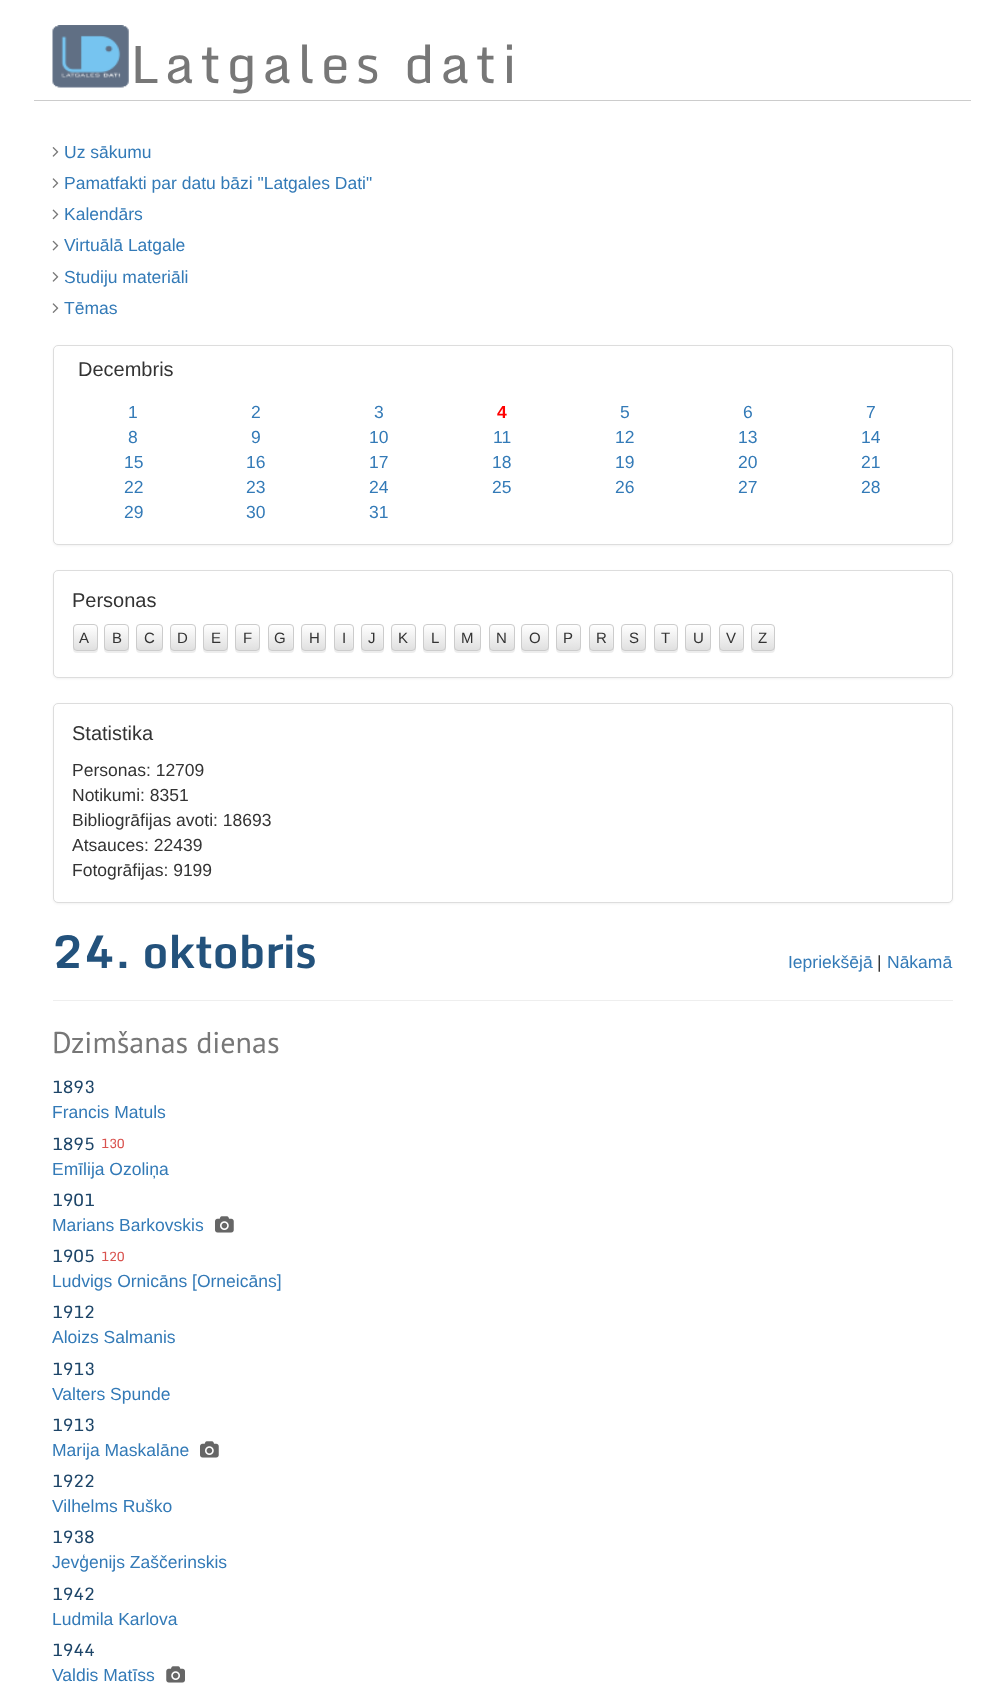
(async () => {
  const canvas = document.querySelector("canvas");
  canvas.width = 1003;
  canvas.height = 1698;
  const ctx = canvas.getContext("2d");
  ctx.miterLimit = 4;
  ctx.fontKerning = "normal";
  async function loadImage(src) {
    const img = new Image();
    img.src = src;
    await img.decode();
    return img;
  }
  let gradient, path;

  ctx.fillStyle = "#ffffff";
  ctx.fillRect(0, 0, 1003, 1698);
  ctx.fillStyle = "#cccccc";
  ctx.fillRect(34, 100, 937, 1);
  ctx.drawImage(await loadImage("img/1.png"), 52, 25, 77, 63);
  ctx.drawImage(await loadImage("img/2.png"), 52, 147, 7, 10);
  ctx.drawImage(await loadImage("img/3.png"), 52, 178, 7, 10);
  ctx.drawImage(await loadImage("img/4.png"), 52, 209, 7, 11);
  ctx.drawImage(await loadImage("img/5.png"), 52, 240, 7, 11);
  ctx.drawImage(await loadImage("img/2.png"), 52, 272, 7, 10);
  ctx.drawImage(await loadImage("img/3.png"), 52, 303, 7, 10);
  ctx.fillStyle = "rgba(0, 0, 0, 0.05)";
  ctx.filter = "blur(1px)";
  ctx.beginPath();
  ctx.roundRect(53, 346, 900, 200, 5);
  ctx.fill();
  ctx.filter = "none";
  ctx.fillStyle = "#ffffff";
  ctx.beginPath();
  ctx.roundRect(53.5, 345.5, 899, 199, 4.5);
  ctx.fill();
  ctx.strokeStyle = "#dddddd";
  ctx.stroke();
  ctx.fillStyle = "rgba(0, 0, 0, 0.05)";
  ctx.filter = "blur(1px)";
  ctx.beginPath();
  ctx.roundRect(53, 571, 900, 108, 5);
  ctx.fill();
  ctx.filter = "none";
  ctx.fillStyle = "#ffffff";
  ctx.beginPath();
  ctx.roundRect(53.5, 570.5, 899, 107, 4.5);
  ctx.fill();
  ctx.stroke();
  ctx.fillStyle = "rgba(0, 0, 0, 0.07)";
  ctx.filter = "blur(0.5px)";
  ctx.beginPath();
  ctx.roundRect(73, 625, 25, 28, 4);
  ctx.fill();
  ctx.filter = "none";
  ctx.save();
  ctx.beginPath();
  ctx.roundRect(73, 624, 25, 27, 4);
  ctx.clip();
  gradient = ctx.createLinearGradient(85, 625, 85, 650);
  gradient.addColorStop(0, "#ffffff");
  gradient.addColorStop(1, "#e0e0e0");
  ctx.fillStyle = gradient;
  ctx.fillRect(73, 625, 25, 25);
  ctx.restore();
  ctx.beginPath();
  ctx.roundRect(73.5, 624.5, 24, 26, 3.5);
  ctx.strokeStyle = "#cccccc";
  ctx.stroke();
  ctx.filter = "blur(0.5px)";
  ctx.beginPath();
  ctx.roundRect(104, 625, 25, 28, 4);
  ctx.fill();
  ctx.filter = "none";
  ctx.save();
  ctx.beginPath();
  ctx.roundRect(104, 624, 25, 27, 4);
  ctx.clip();
  gradient = ctx.createLinearGradient(116, 625, 116, 650);
  gradient.addColorStop(0, "#ffffff");
  gradient.addColorStop(1, "#e0e0e0");
  ctx.fillStyle = gradient;
  ctx.fillRect(104, 625, 25, 25);
  ctx.restore();
  ctx.beginPath();
  ctx.roundRect(104.5, 624.5, 24, 26, 3.5);
  ctx.stroke();
  ctx.filter = "blur(0.5px)";
  ctx.beginPath();
  ctx.roundRect(136, 625, 27, 28, 4);
  ctx.fill();
  ctx.filter = "none";
  ctx.save();
  ctx.beginPath();
  ctx.roundRect(136, 624, 27, 27, 4);
  ctx.clip();
  gradient = ctx.createLinearGradient(149, 625, 149, 650);
  gradient.addColorStop(0, "#ffffff");
  gradient.addColorStop(1, "#e0e0e0");
  ctx.fillStyle = gradient;
  ctx.fillRect(136, 625, 27, 25);
  ctx.restore();
  ctx.beginPath();
  ctx.roundRect(136.5, 624.5, 26, 26, 3.5);
  ctx.stroke();
  ctx.filter = "blur(0.5px)";
  ctx.beginPath();
  ctx.roundRect(170, 625, 26, 28, 4);
  ctx.fill();
  ctx.filter = "none";
  ctx.save();
  ctx.beginPath();
  ctx.roundRect(170, 624, 26, 27, 4);
  ctx.clip();
  gradient = ctx.createLinearGradient(183, 625, 183, 650);
  gradient.addColorStop(0, "#ffffff");
  gradient.addColorStop(1, "#e0e0e0");
  ctx.fillStyle = gradient;
  ctx.fillRect(170, 625, 26, 25);
  ctx.restore();
  ctx.beginPath();
  ctx.roundRect(170.5, 624.5, 25, 26, 3.5);
  ctx.stroke();
  ctx.filter = "blur(0.5px)";
  ctx.beginPath();
  ctx.roundRect(203, 625, 25, 28, 4);
  ctx.fill();
  ctx.filter = "none";
  ctx.save();
  ctx.beginPath();
  ctx.roundRect(203, 624, 25, 27, 4);
  ctx.clip();
  gradient = ctx.createLinearGradient(215, 625, 215, 650);
  gradient.addColorStop(0, "#ffffff");
  gradient.addColorStop(1, "#e0e0e0");
  ctx.fillStyle = gradient;
  ctx.fillRect(203, 625, 25, 25);
  ctx.restore();
  ctx.beginPath();
  ctx.roundRect(203.5, 624.5, 24, 26, 3.5);
  ctx.stroke();
  ctx.filter = "blur(0.5px)";
  ctx.beginPath();
  ctx.roundRect(235, 625, 25, 28, 4);
  ctx.fill();
  ctx.filter = "none";
  ctx.save();
  ctx.beginPath();
  ctx.roundRect(235, 624, 25, 27, 4);
  ctx.clip();
  gradient = ctx.createLinearGradient(248, 625, 248, 650);
  gradient.addColorStop(0, "#ffffff");
  gradient.addColorStop(1, "#e0e0e0");
  ctx.fillStyle = gradient;
  ctx.fillRect(235, 625, 25, 25);
  ctx.restore();
  ctx.beginPath();
  ctx.roundRect(235.5, 624.5, 24, 26, 3.5);
  ctx.stroke();
  ctx.filter = "blur(0.5px)";
  ctx.beginPath();
  ctx.roundRect(268, 625, 26, 28, 4);
  ctx.fill();
  ctx.filter = "none";
  ctx.save();
  ctx.beginPath();
  ctx.roundRect(268, 624, 26, 27, 4);
  ctx.clip();
  gradient = ctx.createLinearGradient(281, 625, 281, 650);
  gradient.addColorStop(0, "#ffffff");
  gradient.addColorStop(1, "#e0e0e0");
  ctx.fillStyle = gradient;
  ctx.fillRect(268, 625, 26, 25);
  ctx.restore();
  ctx.fillStyle = "rgba(255, 255, 255, 0.15)";
  path = new Path2D("M271 626H290.5C293 626.5 292 634 292 635.5V649.5C292.5 649 293 648.5 293 647.5V627.5C293 626 292 625 290.5 625H271.5C270 625 269 626 269 627.5V629C269 627 270 626 271 626Z");
  ctx.fill(path);
  ctx.beginPath();
  ctx.roundRect(268.5, 624.5, 25, 26, 3.5);
  ctx.stroke();
  ctx.fillStyle = "rgba(0, 0, 0, 0.07)";
  ctx.filter = "blur(0.5px)";
  ctx.beginPath();
  ctx.roundRect(301, 625, 25, 28, 4);
  ctx.fill();
  ctx.filter = "none";
  ctx.save();
  ctx.beginPath();
  ctx.roundRect(301, 624, 25, 27, 4);
  ctx.clip();
  gradient = ctx.createLinearGradient(314, 625, 314, 650);
  gradient.addColorStop(0, "#ffffff");
  gradient.addColorStop(1, "#e0e0e0");
  ctx.fillStyle = gradient;
  ctx.fillRect(301, 625, 25, 25);
  ctx.restore();
  ctx.beginPath();
  ctx.roundRect(301.5, 624.5, 24, 26, 3.5);
  ctx.stroke();
  ctx.filter = "blur(0.5px)";
  ctx.beginPath();
  ctx.roundRect(334, 625, 20, 28, 4);
  ctx.fill();
  ctx.filter = "none";
  ctx.save();
  ctx.beginPath();
  ctx.roundRect(334, 624, 20, 27, 4);
  ctx.clip();
  gradient = ctx.createLinearGradient(344, 625, 344, 650);
  gradient.addColorStop(0, "#ffffff");
  gradient.addColorStop(1, "#e0e0e0");
  ctx.fillStyle = gradient;
  ctx.fillRect(334, 625, 20, 25);
  ctx.restore();
  ctx.fillStyle = "rgba(255, 255, 255, 0.15)";
  path = new Path2D("M338 626H350.5C353 627.5 352 634 352 635.5V649.5C352.5 649 353 648.5 353 647.5V627.5C353 626 352 625 350.5 625H337.5C336 625 335 626 335 627.5V629C335 627 336 626 338 626Z");
  ctx.fill(path);
  ctx.beginPath();
  ctx.roundRect(334.5, 624.5, 19, 26, 3.5);
  ctx.stroke();
  ctx.fillStyle = "rgba(0, 0, 0, 0.07)";
  ctx.filter = "blur(0.5px)";
  ctx.beginPath();
  ctx.roundRect(361, 625, 23, 28, 4);
  ctx.fill();
  ctx.filter = "none";
  ctx.save();
  ctx.beginPath();
  ctx.roundRect(361, 624, 23, 27, 4);
  ctx.clip();
  gradient = ctx.createLinearGradient(373, 625, 373, 650);
  gradient.addColorStop(0, "#ffffff");
  gradient.addColorStop(1, "#e0e0e0");
  ctx.fillStyle = gradient;
  ctx.fillRect(361, 625, 23, 25);
  ctx.restore();
  ctx.fillStyle = "rgba(255, 255, 255, 0.15)";
  path = new Path2D("M365 626H380.5C383 626.5 382 634 382 635.5V649.5C382.5 649 383 648.5 383 647.5V627.5C383 626 382 625 380.5 625H365.5C364.5 625 363.5 625.5 363 627Z");
  ctx.fill(path);
  ctx.beginPath();
  ctx.roundRect(361.5, 624.5, 22, 26, 3.5);
  ctx.stroke();
  ctx.fillStyle = "rgba(0, 0, 0, 0.07)";
  ctx.filter = "blur(0.5px)";
  ctx.beginPath();
  ctx.roundRect(391, 625, 25, 28, 4);
  ctx.fill();
  ctx.filter = "none";
  ctx.save();
  ctx.beginPath();
  ctx.roundRect(391, 624, 25, 27, 4);
  ctx.clip();
  gradient = ctx.createLinearGradient(404, 625, 404, 650);
  gradient.addColorStop(0, "#ffffff");
  gradient.addColorStop(1, "#e0e0e0");
  ctx.fillStyle = gradient;
  ctx.fillRect(391, 625, 25, 25);
  ctx.restore();
  ctx.beginPath();
  ctx.roundRect(391.5, 624.5, 24, 26, 3.5);
  ctx.stroke();
  ctx.filter = "blur(0.5px)";
  ctx.beginPath();
  ctx.roundRect(423, 625, 23, 28, 4);
  ctx.fill();
  ctx.filter = "none";
  ctx.save();
  ctx.beginPath();
  ctx.roundRect(423, 624, 23, 27, 4);
  ctx.clip();
  gradient = ctx.createLinearGradient(434, 625, 434, 650);
  gradient.addColorStop(0, "#ffffff");
  gradient.addColorStop(1, "#e0e0e0");
  ctx.fillStyle = gradient;
  ctx.fillRect(423, 625, 23, 25);
  ctx.restore();
  ctx.beginPath();
  ctx.roundRect(423.5, 624.5, 22, 26, 3.5);
  ctx.stroke();
  ctx.filter = "blur(0.5px)";
  ctx.beginPath();
  ctx.roundRect(454, 625, 27, 28, 4);
  ctx.fill();
  ctx.filter = "none";
  ctx.save();
  ctx.beginPath();
  ctx.roundRect(454, 624, 27, 27, 4);
  ctx.clip();
  gradient = ctx.createLinearGradient(468, 625, 468, 650);
  gradient.addColorStop(0, "#ffffff");
  gradient.addColorStop(1, "#e0e0e0");
  ctx.fillStyle = gradient;
  ctx.fillRect(454, 625, 27, 25);
  ctx.restore();
  ctx.beginPath();
  ctx.roundRect(454.5, 624.5, 26, 26, 3.5);
  ctx.stroke();
  ctx.filter = "blur(0.5px)";
  ctx.beginPath();
  ctx.roundRect(489, 625, 26, 28, 4);
  ctx.fill();
  ctx.filter = "none";
  ctx.save();
  ctx.beginPath();
  ctx.roundRect(489, 624, 26, 27, 4);
  ctx.clip();
  gradient = ctx.createLinearGradient(502, 625, 502, 650);
  gradient.addColorStop(0, "#ffffff");
  gradient.addColorStop(1, "#e0e0e0");
  ctx.fillStyle = gradient;
  ctx.fillRect(489, 625, 26, 25);
  ctx.restore();
  ctx.beginPath();
  ctx.roundRect(489.5, 624.5, 25, 26, 3.5);
  ctx.stroke();
  ctx.filter = "blur(0.5px)";
  ctx.beginPath();
  ctx.roundRect(521, 625, 28, 28, 4);
  ctx.fill();
  ctx.filter = "none";
  ctx.save();
  ctx.beginPath();
  ctx.roundRect(521, 624, 28, 27, 4);
  ctx.clip();
  gradient = ctx.createLinearGradient(535, 625, 535, 650);
  gradient.addColorStop(0, "#ffffff");
  gradient.addColorStop(1, "#e0e0e0");
  ctx.fillStyle = gradient;
  ctx.fillRect(521, 625, 28, 25);
  ctx.restore();
  ctx.beginPath();
  ctx.roundRect(521.5, 624.5, 27, 26, 3.5);
  ctx.stroke();
  ctx.filter = "blur(0.5px)";
  ctx.beginPath();
  ctx.roundRect(556, 625, 25, 28, 4);
  ctx.fill();
  ctx.filter = "none";
  ctx.save();
  ctx.beginPath();
  ctx.roundRect(556, 624, 25, 27, 4);
  ctx.clip();
  gradient = ctx.createLinearGradient(569, 625, 569, 650);
  gradient.addColorStop(0, "#ffffff");
  gradient.addColorStop(1, "#e0e0e0");
  ctx.fillStyle = gradient;
  ctx.fillRect(556, 625, 25, 25);
  ctx.restore();
  ctx.beginPath();
  ctx.roundRect(556.5, 624.5, 24, 26, 3.5);
  ctx.stroke();
  ctx.filter = "blur(0.5px)";
  ctx.beginPath();
  ctx.roundRect(589, 625, 25, 28, 4);
  ctx.fill();
  ctx.filter = "none";
  ctx.save();
  ctx.beginPath();
  ctx.roundRect(589, 624, 25, 27, 4);
  ctx.clip();
  gradient = ctx.createLinearGradient(601, 625, 601, 650);
  gradient.addColorStop(0, "#ffffff");
  gradient.addColorStop(1, "#e0e0e0");
  ctx.fillStyle = gradient;
  ctx.fillRect(589, 625, 25, 25);
  ctx.restore();
  ctx.fillStyle = "rgba(255, 255, 255, 0.15)";
  path = new Path2D("M592 626H610.5C613 626.5 612 634 612 635.5V649.5C612.5 649 613 648.5 613 647.5V627.5C613 626 612 625 610.5 625H592.5C591 625 590 626 590 627.5V629C590 627 591 626 592 626Z");
  ctx.fill(path);
  ctx.beginPath();
  ctx.roundRect(589.5, 624.5, 24, 26, 3.5);
  ctx.stroke();
  ctx.fillStyle = "rgba(0, 0, 0, 0.07)";
  ctx.filter = "blur(0.5px)";
  ctx.beginPath();
  ctx.roundRect(621, 625, 25, 28, 4);
  ctx.fill();
  ctx.filter = "none";
  ctx.save();
  ctx.beginPath();
  ctx.roundRect(621, 624, 25, 27, 4);
  ctx.clip();
  gradient = ctx.createLinearGradient(634, 625, 634, 650);
  gradient.addColorStop(0, "#ffffff");
  gradient.addColorStop(1, "#e0e0e0");
  ctx.fillStyle = gradient;
  ctx.fillRect(621, 625, 25, 25);
  ctx.restore();
  ctx.beginPath();
  ctx.roundRect(621.5, 624.5, 24, 26, 3.5);
  ctx.stroke();
  ctx.filter = "blur(0.5px)";
  ctx.beginPath();
  ctx.roundRect(654, 625, 24, 28, 4);
  ctx.fill();
  ctx.filter = "none";
  ctx.save();
  ctx.beginPath();
  ctx.roundRect(654, 624, 24, 27, 4);
  ctx.clip();
  gradient = ctx.createLinearGradient(666, 625, 666, 650);
  gradient.addColorStop(0, "#ffffff");
  gradient.addColorStop(1, "#e0e0e0");
  ctx.fillStyle = gradient;
  ctx.fillRect(654, 625, 24, 25);
  ctx.restore();
  ctx.beginPath();
  ctx.roundRect(654.5, 624.5, 23, 26, 3.5);
  ctx.stroke();
  ctx.filter = "blur(0.5px)";
  ctx.beginPath();
  ctx.roundRect(685, 625, 26, 28, 4);
  ctx.fill();
  ctx.filter = "none";
  ctx.save();
  ctx.beginPath();
  ctx.roundRect(685, 624, 26, 27, 4);
  ctx.clip();
  gradient = ctx.createLinearGradient(698, 625, 698, 650);
  gradient.addColorStop(0, "#ffffff");
  gradient.addColorStop(1, "#e0e0e0");
  ctx.fillStyle = gradient;
  ctx.fillRect(685, 625, 26, 25);
  ctx.restore();
  ctx.beginPath();
  ctx.roundRect(685.5, 624.5, 25, 26, 3.5);
  ctx.stroke();
  ctx.filter = "blur(0.5px)";
  ctx.beginPath();
  ctx.roundRect(719, 625, 25, 28, 4);
  ctx.fill();
  ctx.filter = "none";
  ctx.save();
  ctx.beginPath();
  ctx.roundRect(719, 624, 25, 27, 4);
  ctx.clip();
  gradient = ctx.createLinearGradient(731, 625, 731, 650);
  gradient.addColorStop(0, "#ffffff");
  gradient.addColorStop(1, "#e0e0e0");
  ctx.fillStyle = gradient;
  ctx.fillRect(719, 625, 25, 25);
  ctx.restore();
  ctx.fillStyle = "rgba(255, 255, 255, 0.15)";
  path = new Path2D("M722 626H740.5C743 626.5 742 634 742 635.5V649.5C742.5 649 743 648.5 743 647.5V627.5C743 626 742 625 740.5 625H722.5C721 625 720 626 720 627.5V629C720 627 721 626 722 626Z");
  ctx.fill(path);
  ctx.beginPath();
  ctx.roundRect(719.5, 624.5, 24, 26, 3.5);
  ctx.stroke();
  ctx.fillStyle = "rgba(0, 0, 0, 0.07)";
  ctx.filter = "blur(0.5px)";
  ctx.beginPath();
  ctx.roundRect(751, 625, 24, 28, 4);
  ctx.fill();
  ctx.filter = "none";
  ctx.save();
  ctx.beginPath();
  ctx.roundRect(751, 624, 24, 27, 4);
  ctx.clip();
  gradient = ctx.createLinearGradient(763, 625, 763, 650);
  gradient.addColorStop(0, "#ffffff");
  gradient.addColorStop(1, "#e0e0e0");
  ctx.fillStyle = gradient;
  ctx.fillRect(751, 625, 24, 25);
  ctx.restore();
  ctx.beginPath();
  ctx.roundRect(751.5, 624.5, 23, 26, 3.5);
  ctx.stroke();
  ctx.fillStyle = "rgba(0, 0, 0, 0.05)";
  ctx.filter = "blur(1px)";
  ctx.beginPath();
  ctx.roundRect(53, 704, 900, 200, 5);
  ctx.fill();
  ctx.filter = "none";
  ctx.fillStyle = "#ffffff";
  ctx.beginPath();
  ctx.roundRect(53.5, 703.5, 899, 199, 4.5);
  ctx.fill();
  ctx.strokeStyle = "#dddddd";
  ctx.stroke();
  ctx.fillStyle = "#eeeeee";
  ctx.fillRect(53, 1000, 900, 1);
  ctx.drawImage(await loadImage("img/6.png"), 215, 1216, 19, 17);
  ctx.drawImage(await loadImage("img/6.png"), 200, 1441, 19, 17);
  ctx.drawImage(await loadImage("img/7.png"), 166, 1666, 19, 17);
  ctx.letterSpacing = "5.25px";
  ctx.font = "52.5px Monda";
  ctx.fillStyle = "#777777";
  ctx.fillText("Latgales dati", 130, 83);
  ctx.letterSpacing = "0px";
  ctx.font = "17.5px Liberation Sans";
  ctx.fillStyle = "#337ab7";
  for (const [text, x, y] of [
    ["Uz sākumu", 64, 158],
    ["Pamatfakti par datu bāzi \"Latgales Dati\"", 64, 189],
    ["Kalendārs", 64, 220],
    ["Virtuālā Latgale", 64, 251],
    ["Studiju materiāli", 64, 283],
    ["Tēmas", 64, 314],
  ]) {
    ctx.fillText(text, x, y);
  }
  ctx.font = "20px Liberation Sans";
  ctx.fillStyle = "#333333";
  ctx.fillText("Decembris", 78, 376);
  ctx.font = "17.5px Liberation Sans";
  ctx.fillStyle = "#337ab7";
  for (const [text, x, y] of [
    ["1", 128, 418],
    ["2", 251, 418],
    ["3", 374, 418],
  ]) {
    ctx.fillText(text, x, y);
  }
  ctx.font = "bold 17.5px Liberation Sans";
  ctx.fillStyle = "#ff0000";
  ctx.fillText("4", 497, 418);
  ctx.font = "17.5px Liberation Sans";
  ctx.fillStyle = "#337ab7";
  for (const [text, x, y] of [
    ["5", 620, 418],
    ["6", 743, 418],
    ["7", 866, 418],
    ["8", 128, 443],
    ["9", 251, 443],
    ["10", 369, 443],
    ["11", 493, 443],
    ["12", 615, 443],
    ["13", 738, 443],
    ["14", 861, 443],
    ["15", 124, 468],
    ["16", 246, 468],
    ["17", 369, 468],
    ["18", 492, 468],
    ["19", 615, 468],
    ["20", 738, 468],
    ["21", 861, 468],
    ["22", 124, 493],
    ["23", 246, 493],
    ["24", 369, 493],
    ["25", 492, 493],
    ["26", 615, 493],
    ["27", 738, 493],
    ["28", 861, 493],
    ["29", 124, 518],
    ["30", 246, 518],
    ["31", 369, 518],
  ]) {
    ctx.fillText(text, x, y);
  }
  ctx.font = "20px Liberation Sans";
  ctx.fillStyle = "#333333";
  ctx.fillText("Personas", 72, 607);
  ctx.font = "15px Liberation Sans";
  for (const [text, x, y] of [
    ["A", 79, 643],
    ["B", 112, 643],
    ["C", 144, 643],
    ["D", 177, 643],
    ["E", 211, 643],
    ["F", 243, 643],
    ["G", 274, 643],
    ["H", 309, 643],
    ["I", 342, 643],
    ["J", 368, 643],
    ["K", 398, 643],
    ["L", 431, 643],
    ["M", 461, 643],
    ["N", 496, 643],
    ["O", 529, 643],
    ["P", 563, 643],
    ["R", 596, 643],
    ["S", 629, 643],
    ["T", 661, 643],
    ["U", 693, 643],
    ["V", 726, 643],
    ["Z", 758, 643],
  ]) {
    ctx.fillText(text, x, y);
  }
  ctx.font = "20px Liberation Sans";
  ctx.fillText("Statistika", 72, 740);
  ctx.font = "17.5px Liberation Sans";
  for (const [text, x, y] of [
    ["Personas: 12709", 72, 776],
    ["Notikumi: 8351", 72, 801],
    ["Bibliogrāfijas avoti: 18693", 72, 826],
    ["Atsauces: 22439", 72, 851],
    ["Fotogrāfijas: 9199", 72, 876],
  ]) {
    ctx.fillText(text, x, y);
  }
  ctx.font = "bold 45px Monda";
  ctx.fillStyle = "#23527c";
  ctx.fillText("24. oktobris", 52, 968);
  ctx.font = "17.5px Liberation Sans";
  ctx.fillStyle = "#337ab7";
  ctx.fillText("Iepriekšējā", 788, 968);
  ctx.fillStyle = "#333333";
  ctx.fillText("|", 877, 968);
  ctx.fillStyle = "#337ab7";
  ctx.fillText("Nākamā", 887, 968);
  ctx.font = "30px PT Sans";
  ctx.fillStyle = "#777777";
  ctx.fillText("Dzimšanas dienas", 52, 1053);
  ctx.font = "17.5px Monda";
  ctx.fillStyle = "#1d4568";
  ctx.fillText("1893", 52, 1093);
  ctx.font = "17.5px Liberation Sans";
  ctx.fillStyle = "#337ab7";
  ctx.fillText("Francis Matuls", 52, 1118);
  ctx.font = "17.5px Monda";
  ctx.fillStyle = "#1d4568";
  ctx.fillText("1895", 52, 1150);
  ctx.font = "13px Monda";
  ctx.fillStyle = "#d9534f";
  ctx.fillText("130", 101, 1148);
  ctx.font = "17.5px Liberation Sans";
  ctx.fillStyle = "#337ab7";
  ctx.fillText("Emīlija Ozoliņa", 52, 1175);
  ctx.font = "17.5px Monda";
  ctx.fillStyle = "#1d4568";
  ctx.fillText("1901", 52, 1206);
  ctx.font = "17.5px Liberation Sans";
  ctx.fillStyle = "#337ab7";
  ctx.fillText("Marians Barkovskis", 52, 1231);
  ctx.font = "17.5px Monda";
  ctx.fillStyle = "#1d4568";
  ctx.fillText("1905", 52, 1262);
  ctx.font = "13px Monda";
  ctx.fillStyle = "#d9534f";
  ctx.fillText("120", 101, 1261);
  ctx.font = "17.5px Liberation Sans";
  ctx.fillStyle = "#337ab7";
  ctx.fillText("Ludvigs Ornicāns [Orneicāns]", 52, 1287);
  ctx.font = "17.5px Monda";
  ctx.fillStyle = "#1d4568";
  ctx.fillText("1912", 52, 1318);
  ctx.font = "17.5px Liberation Sans";
  ctx.fillStyle = "#337ab7";
  ctx.fillText("Aloizs Salmanis", 52, 1343);
  ctx.font = "17.5px Monda";
  ctx.fillStyle = "#1d4568";
  ctx.fillText("1913", 52, 1375);
  ctx.font = "17.5px Liberation Sans";
  ctx.fillStyle = "#337ab7";
  ctx.fillText("Valters Spunde", 52, 1400);
  ctx.font = "17.5px Monda";
  ctx.fillStyle = "#1d4568";
  ctx.fillText("1913", 52, 1431);
  ctx.font = "17.5px Liberation Sans";
  ctx.fillStyle = "#337ab7";
  ctx.fillText("Marija Maskalāne", 52, 1456);
  ctx.font = "17.5px Monda";
  ctx.fillStyle = "#1d4568";
  ctx.fillText("1922", 52, 1487);
  ctx.font = "17.5px Liberation Sans";
  ctx.fillStyle = "#337ab7";
  ctx.fillText("Vilhelms Ruško", 52, 1512);
  ctx.font = "17.5px Monda";
  ctx.fillStyle = "#1d4568";
  ctx.fillText("1938", 52, 1543);
  ctx.font = "17.5px Liberation Sans";
  ctx.fillStyle = "#337ab7";
  ctx.fillText("Jevģenijs Zaščerinskis", 52, 1568);
  ctx.font = "17.5px Monda";
  ctx.fillStyle = "#1d4568";
  ctx.fillText("1942", 52, 1600);
  ctx.font = "17.5px Liberation Sans";
  ctx.fillStyle = "#337ab7";
  ctx.fillText("Ludmila Karlova", 52, 1625);
  ctx.font = "17.5px Monda";
  ctx.fillStyle = "#1d4568";
  ctx.fillText("1944", 52, 1656);
  ctx.font = "17.5px Liberation Sans";
  ctx.fillStyle = "#337ab7";
  ctx.fillText("Valdis Matīss", 52, 1681);
})();
